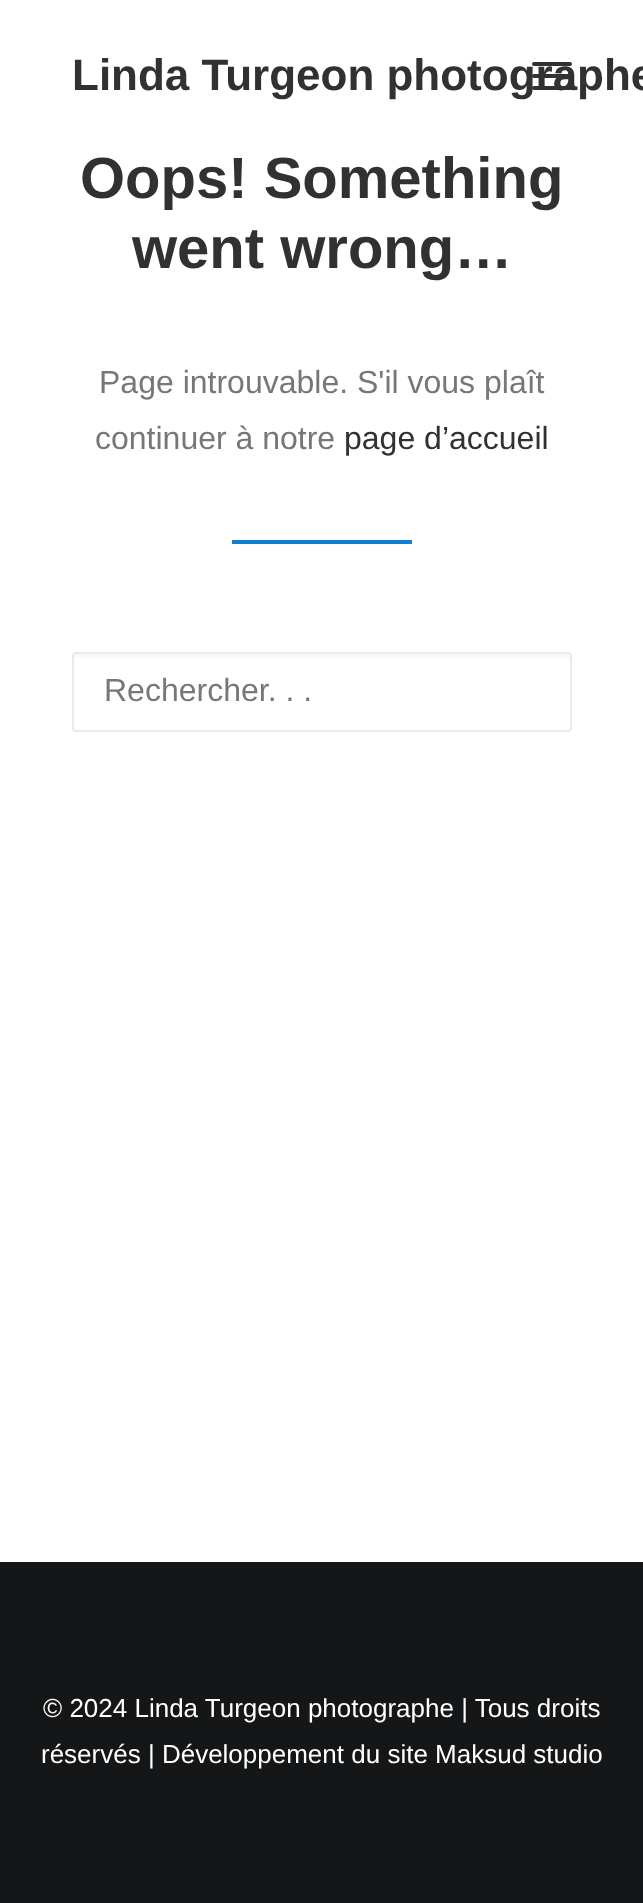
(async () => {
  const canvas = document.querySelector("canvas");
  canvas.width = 643;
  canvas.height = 1903;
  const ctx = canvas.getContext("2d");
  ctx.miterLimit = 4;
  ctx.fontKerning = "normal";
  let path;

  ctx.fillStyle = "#ffffff";
  ctx.fillRect(0, 0, 643, 1903);
  ctx.fillStyle = "#303133";
  ctx.beginPath();
  ctx.roundRect(532, 74, 40, 4, 2);
  ctx.fill();
  ctx.beginPath();
  ctx.roundRect(532, 62, 40, 4, 2);
  ctx.fill();
  ctx.beginPath();
  ctx.roundRect(532, 86, 40, 4, 2);
  ctx.fill();
  ctx.fillStyle = "#1080d0";
  ctx.fillRect(232, 540, 180, 4);
  ctx.fillStyle = "#f9f9f9";
  path = new Path2D("M76 658H568C569 658 570 659 570 660V656C570 655 569 654 568 654H76C75 654 74 655 74 656V660C74 659 75 658 76 658Z");
  ctx.fill(path);
  ctx.beginPath();
  ctx.roundRect(73, 653, 498, 78, 3);
  ctx.strokeStyle = "#eaeaea";
  ctx.lineWidth = 2;
  ctx.stroke();
  ctx.fillStyle = "#141618";
  ctx.fillRect(0, 1562, 643, 341);
  ctx.font = "bold 44px Liberation Sans";
  ctx.fillStyle = "#303133";
  ctx.fillText("Linda Turgeon photographe", 72, 90);
  ctx.font = "bold 58px Liberation Sans";
  ctx.fillText("Oops! Something", 80, 198);
  ctx.fillText("went wrong…", 132, 268);
  ctx.font = "32px Liberation Sans";
  ctx.fillStyle = "#777777";
  ctx.fillText("Page introuvable. S'il vous plaît", 99, 393);
  ctx.fillText("continuer à notre", 95, 449);
  ctx.fillStyle = "#303133";
  ctx.fillText("page d’accueil", 344, 449);
  ctx.fillStyle = "#777777";
  ctx.fillText("Rechercher. . .", 104, 701);
  ctx.font = "26px Liberation Sans";
  ctx.fillStyle = "#ffffff";
  ctx.fillText("© 2024 Linda Turgeon photographe | Tous droits", 43, 1717);
  ctx.fillText("réservés | Développement du site Maksud studio", 41, 1763);
})();
